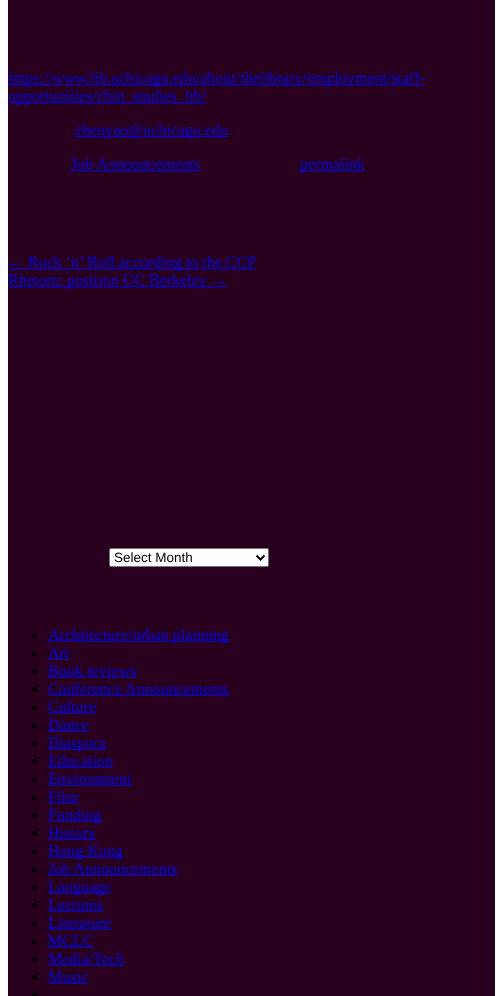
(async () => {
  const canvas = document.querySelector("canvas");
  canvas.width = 503;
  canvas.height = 996;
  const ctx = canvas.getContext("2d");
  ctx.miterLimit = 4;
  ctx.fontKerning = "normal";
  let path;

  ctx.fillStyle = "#ffffff";
  ctx.fillRect(0, 0, 503, 996);
  for (const [x, y, w, h, color] of [
    [8, 0, 487, 996, "#29001e"],
    [8, 84, 417, 1, "#0000ee"],
    [8, 102, 198, 1, "#0000ee"],
    [75, 136, 153, 1, "#0000ee"],
    [71, 170, 129, 1, "#0000ee"],
    [300, 170, 64, 1, "#0000ee"],
    [8, 268, 248, 1, "#0000ee"],
    [8, 286, 219, 1, "#0000ee"],
  ]) {
    ctx.fillStyle = color;
    ctx.fillRect(x, y, w, h);
  }
  ctx.fillStyle = "#ffffff";
  ctx.beginPath();
  ctx.roundRect(109.5, 548.5, 159, 18, 1.5);
  ctx.fill();
  ctx.strokeStyle = "#767676";
  ctx.stroke();
  path = new Path2D("M256.5 555.5L260.5 559.5L264.5 555.5");
  ctx.strokeStyle = "#000000";
  ctx.lineWidth = 2;
  ctx.stroke(path);
  ctx.fillStyle = "#000000";
  ctx.beginPath();
  ctx.arc(34.5, 635.5, 2.5, 0, Math.PI * 2);
  ctx.fill();
  ctx.fillStyle = "#0000ee";
  ctx.fillRect(48, 641, 181, 1);
  ctx.fillStyle = "#000000";
  ctx.beginPath();
  ctx.arc(34.5, 653.5, 2.5, 0, Math.PI * 2);
  ctx.fill();
  ctx.fillStyle = "#0000ee";
  ctx.fillRect(48, 659, 21, 1);
  ctx.fillStyle = "#000000";
  ctx.beginPath();
  ctx.arc(34.5, 671.5, 2.5, 0, Math.PI * 2);
  ctx.fill();
  ctx.fillStyle = "#0000ee";
  ctx.fillRect(48, 677, 88, 1);
  ctx.fillStyle = "#000000";
  ctx.beginPath();
  ctx.arc(34.5, 689.5, 2.5, 0, Math.PI * 2);
  ctx.fill();
  ctx.fillStyle = "#0000ee";
  ctx.fillRect(48, 695, 181, 1);
  ctx.fillStyle = "#000000";
  ctx.beginPath();
  ctx.arc(34.5, 707.5, 2.5, 0, Math.PI * 2);
  ctx.fill();
  ctx.fillStyle = "#0000ee";
  ctx.fillRect(48, 713, 48, 1);
  ctx.fillStyle = "#000000";
  ctx.beginPath();
  ctx.arc(34.5, 725.5, 2.5, 0, Math.PI * 2);
  ctx.fill();
  ctx.fillStyle = "#0000ee";
  ctx.fillRect(48, 731, 41, 1);
  ctx.fillStyle = "#000000";
  ctx.beginPath();
  ctx.arc(34.5, 743.5, 2.5, 0, Math.PI * 2);
  ctx.fill();
  ctx.fillStyle = "#0000ee";
  ctx.fillRect(48, 749, 58, 1);
  ctx.fillStyle = "#000000";
  ctx.beginPath();
  ctx.arc(34.5, 761.5, 2.5, 0, Math.PI * 2);
  ctx.fill();
  ctx.fillStyle = "#0000ee";
  ctx.fillRect(48, 767, 65, 1);
  ctx.fillStyle = "#000000";
  ctx.beginPath();
  ctx.arc(34.5, 779.5, 2.5, 0, Math.PI * 2);
  ctx.fill();
  ctx.fillStyle = "#0000ee";
  ctx.fillRect(48, 785, 84, 1);
  ctx.fillStyle = "#000000";
  ctx.beginPath();
  ctx.arc(34.5, 797.5, 2.5, 0, Math.PI * 2);
  ctx.fill();
  ctx.fillStyle = "#0000ee";
  ctx.fillRect(48, 803, 30, 1);
  ctx.fillStyle = "#000000";
  ctx.beginPath();
  ctx.arc(34.5, 815.5, 2.5, 0, Math.PI * 2);
  ctx.fill();
  ctx.fillStyle = "#0000ee";
  ctx.fillRect(48, 821, 53, 1);
  ctx.fillStyle = "#000000";
  ctx.beginPath();
  ctx.arc(34.5, 833.5, 2.5, 0, Math.PI * 2);
  ctx.fill();
  ctx.fillStyle = "#0000ee";
  ctx.fillRect(48, 839, 48, 1);
  ctx.fillStyle = "#000000";
  ctx.beginPath();
  ctx.arc(34.5, 851.5, 2.5, 0, Math.PI * 2);
  ctx.fill();
  ctx.fillStyle = "#0000ee";
  ctx.fillRect(48, 857, 75, 1);
  ctx.fillStyle = "#000000";
  ctx.beginPath();
  ctx.arc(34.5, 869.5, 2.5, 0, Math.PI * 2);
  ctx.fill();
  ctx.fillStyle = "#0000ee";
  ctx.fillRect(48, 875, 129, 1);
  ctx.fillStyle = "#000000";
  ctx.beginPath();
  ctx.arc(34.5, 887.5, 2.5, 0, Math.PI * 2);
  ctx.fill();
  ctx.fillStyle = "#0000ee";
  ctx.fillRect(48, 893, 63, 1);
  ctx.fillStyle = "#000000";
  ctx.beginPath();
  ctx.arc(34.5, 905.5, 2.5, 0, Math.PI * 2);
  ctx.fill();
  ctx.fillStyle = "#0000ee";
  ctx.fillRect(48, 911, 55, 1);
  ctx.fillStyle = "#000000";
  ctx.beginPath();
  ctx.arc(34.5, 923.5, 2.5, 0, Math.PI * 2);
  ctx.fill();
  ctx.fillStyle = "#0000ee";
  ctx.fillRect(48, 929, 63, 1);
  ctx.fillStyle = "#000000";
  ctx.beginPath();
  ctx.arc(34.5, 941.5, 2.5, 0, Math.PI * 2);
  ctx.fill();
  ctx.fillStyle = "#0000ee";
  ctx.fillRect(48, 947, 45, 1);
  ctx.fillStyle = "#000000";
  ctx.beginPath();
  ctx.arc(34.5, 959.5, 2.5, 0, Math.PI * 2);
  ctx.fill();
  ctx.fillStyle = "#0000ee";
  ctx.fillRect(48, 965, 76, 1);
  ctx.fillStyle = "#000000";
  ctx.beginPath();
  ctx.arc(34.5, 977.5, 2.5, 0, Math.PI * 2);
  ctx.fill();
  ctx.fillStyle = "#0000ee";
  ctx.fillRect(48, 983, 40, 1);
  ctx.fillStyle = "#000000";
  ctx.beginPath();
  ctx.arc(34.5, 995.5, 2.5, 0, Math.PI * 2);
  ctx.fill();
  ctx.font = "16px Liberation Serif";
  ctx.fillStyle = "#0000ee";
  for (const [text, x, y] of [
    ["https://www.lib.uchicago.edu/about/thelibrary/employment/staff-", 8, 83],
    ["opportunities/chin_studies_lib/", 8, 101],
    ["chenyao@uchicago.edu", 75, 135],
    ["Job Announcements", 71, 169],
    ["permalink", 300, 169],
    ["← Rock ‘n’ Roll according to the CCP", 8, 267],
    ["Rhetoric position UC Berkeley →", 8, 285],
  ]) {
    ctx.fillText(text, x, y);
  }
  ctx.font = "13.5px Liberation Sans";
  ctx.fillStyle = "#000000";
  ctx.fillText("Select Month", 114, 562);
  ctx.font = "16px Liberation Serif";
  ctx.fillStyle = "#0000ee";
  for (const [text, x, y] of [
    ["Architecture/urban planning", 48, 640],
    ["Art", 48, 658],
    ["Book reviews", 48, 676],
    ["Conference Announcements", 48, 694],
    ["Culture", 48, 712],
    ["Dance", 48, 730],
    ["Diaspora", 48, 748],
    ["Education", 48, 766],
    ["Environment", 48, 784],
    ["Film", 48, 802],
    ["Funding", 48, 820],
    ["History", 48, 838],
    ["Hong Kong", 48, 856],
    ["Job Announcements", 48, 874],
    ["Language", 48, 892],
    ["Lectures", 48, 910],
    ["Literature", 48, 928],
    ["MCLC", 48, 946],
    ["Media/Tech", 48, 964],
    ["Music", 48, 982],
  ]) {
    ctx.fillText(text, x, y);
  }
})();
